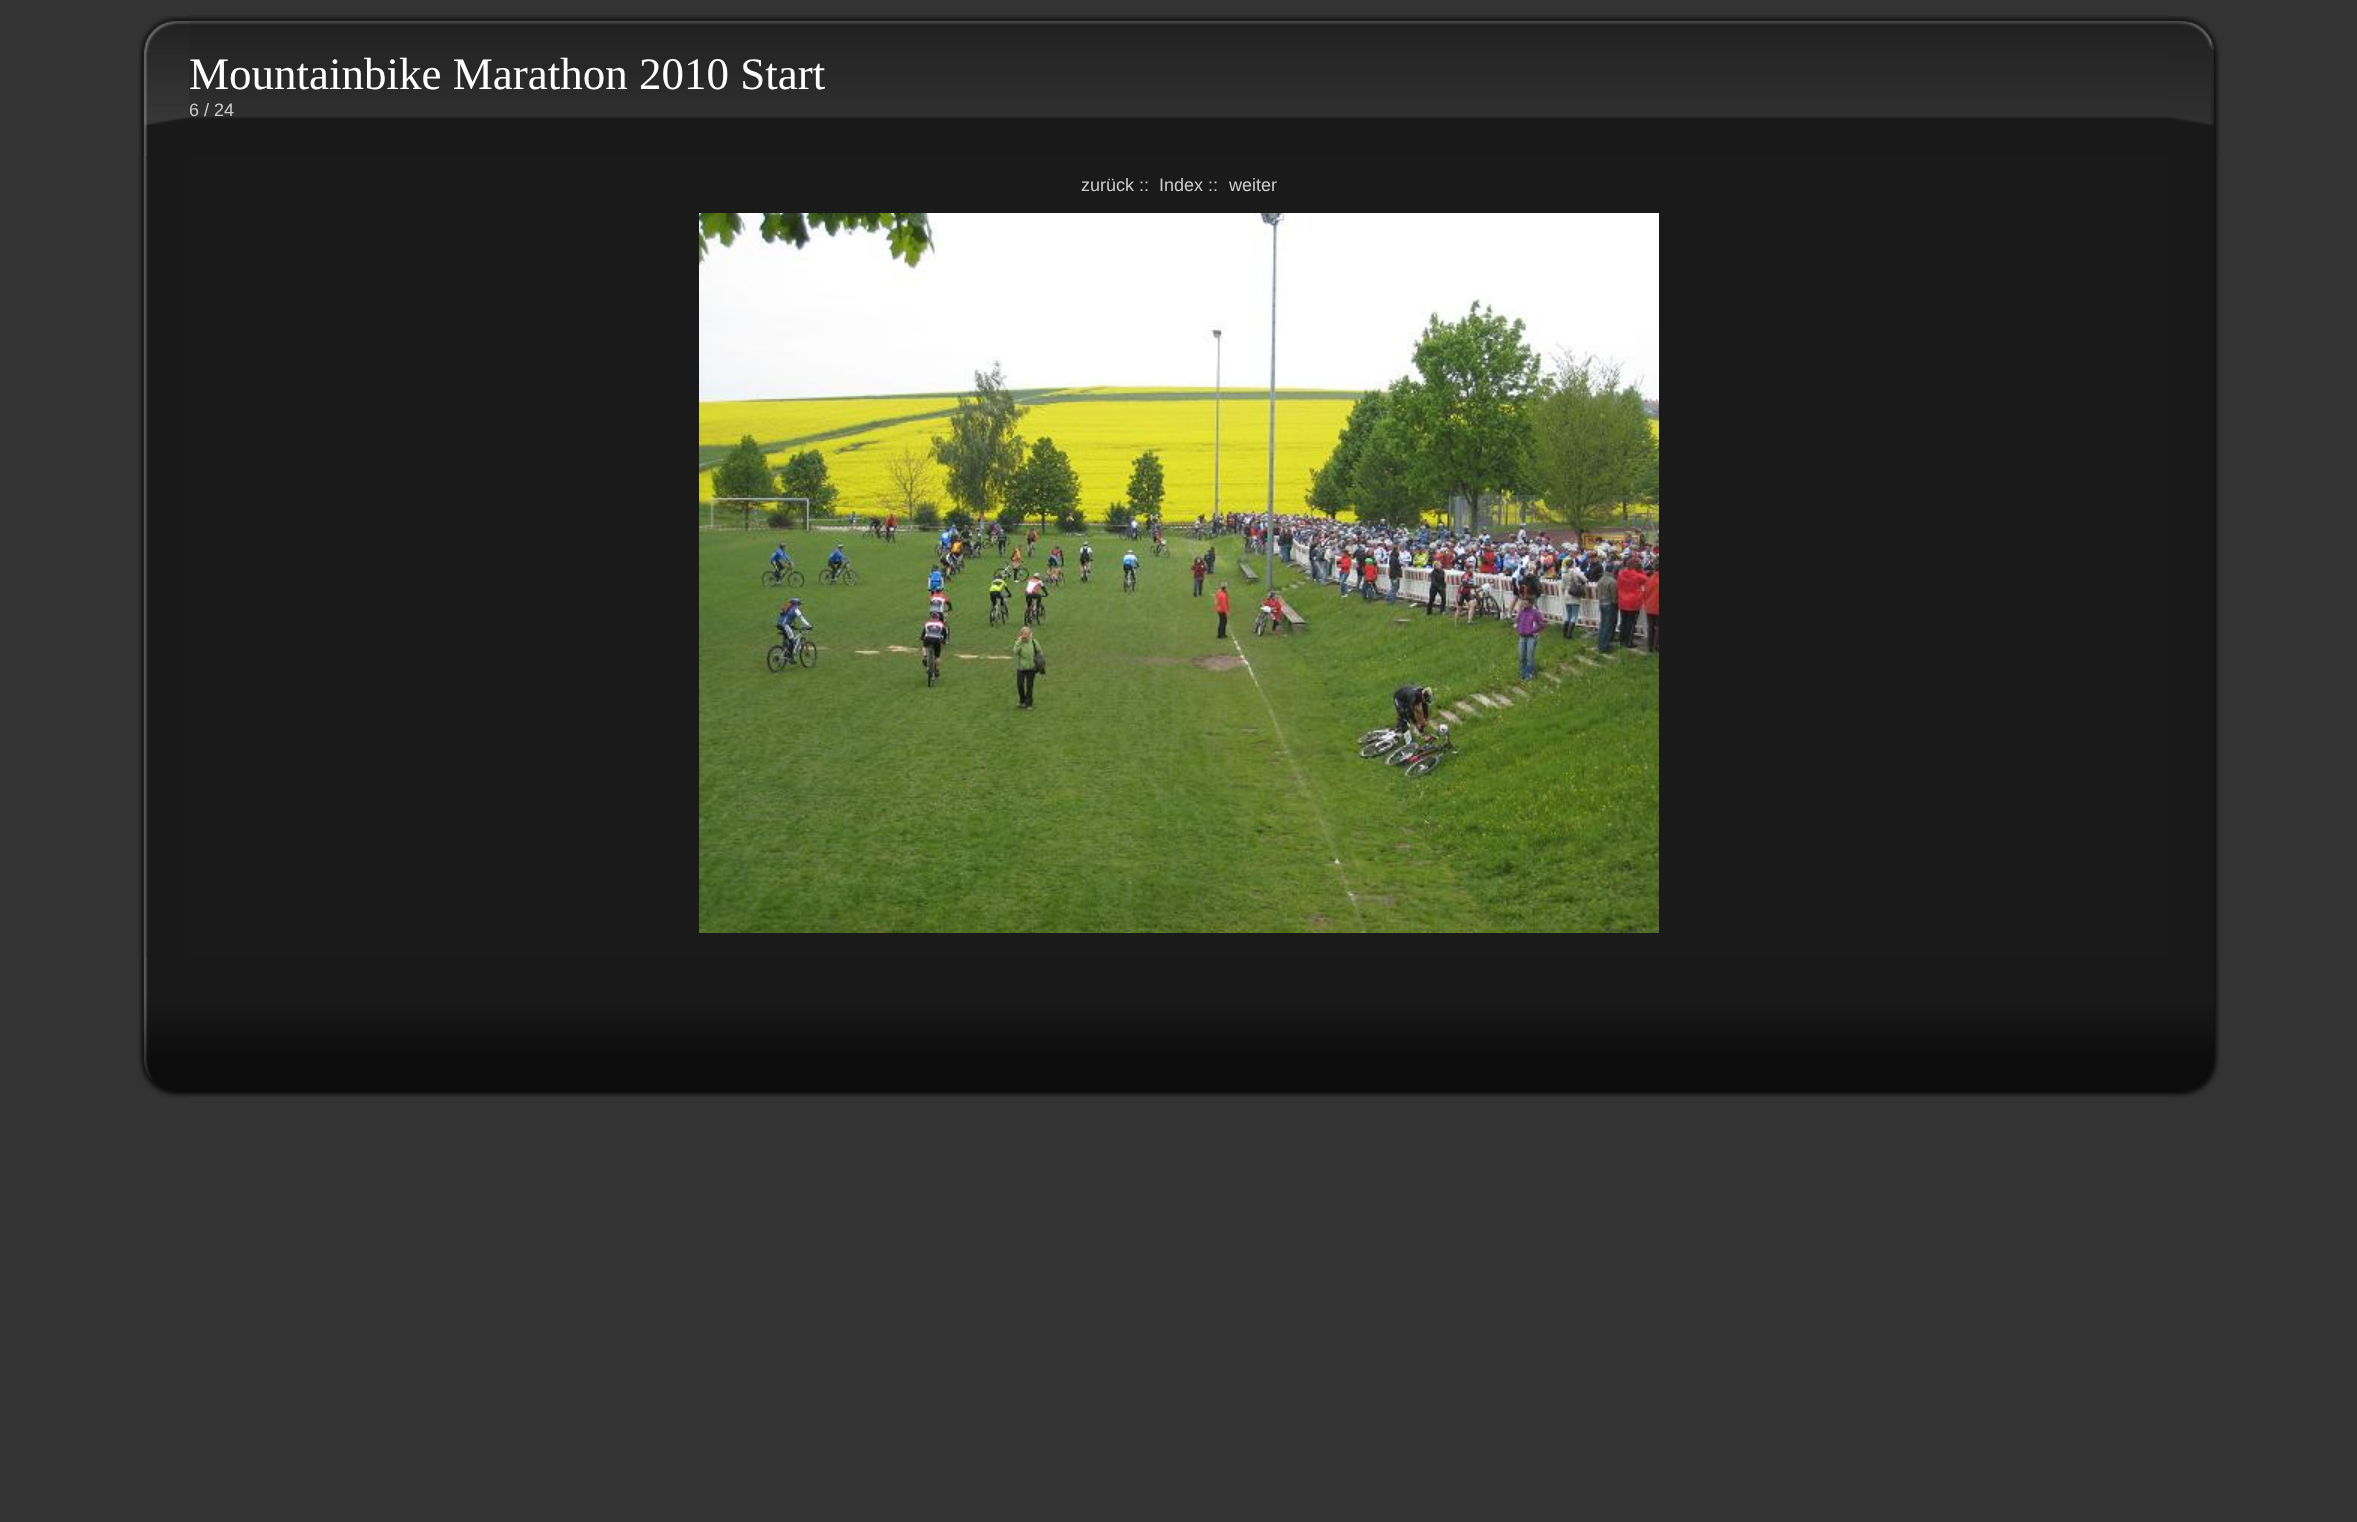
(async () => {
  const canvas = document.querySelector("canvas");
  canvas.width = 2357;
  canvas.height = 1522;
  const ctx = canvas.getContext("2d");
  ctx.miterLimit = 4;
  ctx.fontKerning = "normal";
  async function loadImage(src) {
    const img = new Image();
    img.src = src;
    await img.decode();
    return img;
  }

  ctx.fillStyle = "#333333";
  ctx.fillRect(0, 0, 2357, 1522);
  ctx.drawImage(await loadImage("img/1.png"), 139, 16, 50, 140);
  ctx.drawImage(await loadImage("img/2.png"), 189, 15, 1980, 141);
  ctx.drawImage(await loadImage("img/3.png"), 2169, 16, 51, 140);
  ctx.drawImage(await loadImage("img/4.png"), 138, 156, 51, 801);
  ctx.fillStyle = "#1a1a1a";
  ctx.fillRect(189, 156, 1980, 801);
  ctx.drawImage(await loadImage("img/5.png"), 699, 213, 960, 720);
  ctx.drawImage(await loadImage("img/6.png"), 2169, 156, 50, 801);
  ctx.drawImage(await loadImage("img/7.png"), 139, 957, 50, 141);
  ctx.drawImage(await loadImage("img/8.png"), 189, 957, 1980, 140);
  ctx.drawImage(await loadImage("img/9.png"), 2169, 957, 51, 141);
  ctx.font = "45px Liberation Serif";
  ctx.fillStyle = "#ffffff";
  ctx.fillText("Mountainbike Marathon 2010 Start", 189, 89);
  ctx.font = "18px Liberation Sans";
  ctx.fillStyle = "#cccccc";
  for (const [text, x, y] of [
    ["6 / 24", 189, 116],
    ["zurück ::", 1081, 191],
    ["Index ::", 1159, 191],
    ["weiter", 1229, 191],
  ]) {
    ctx.fillText(text, x, y);
  }
})();
